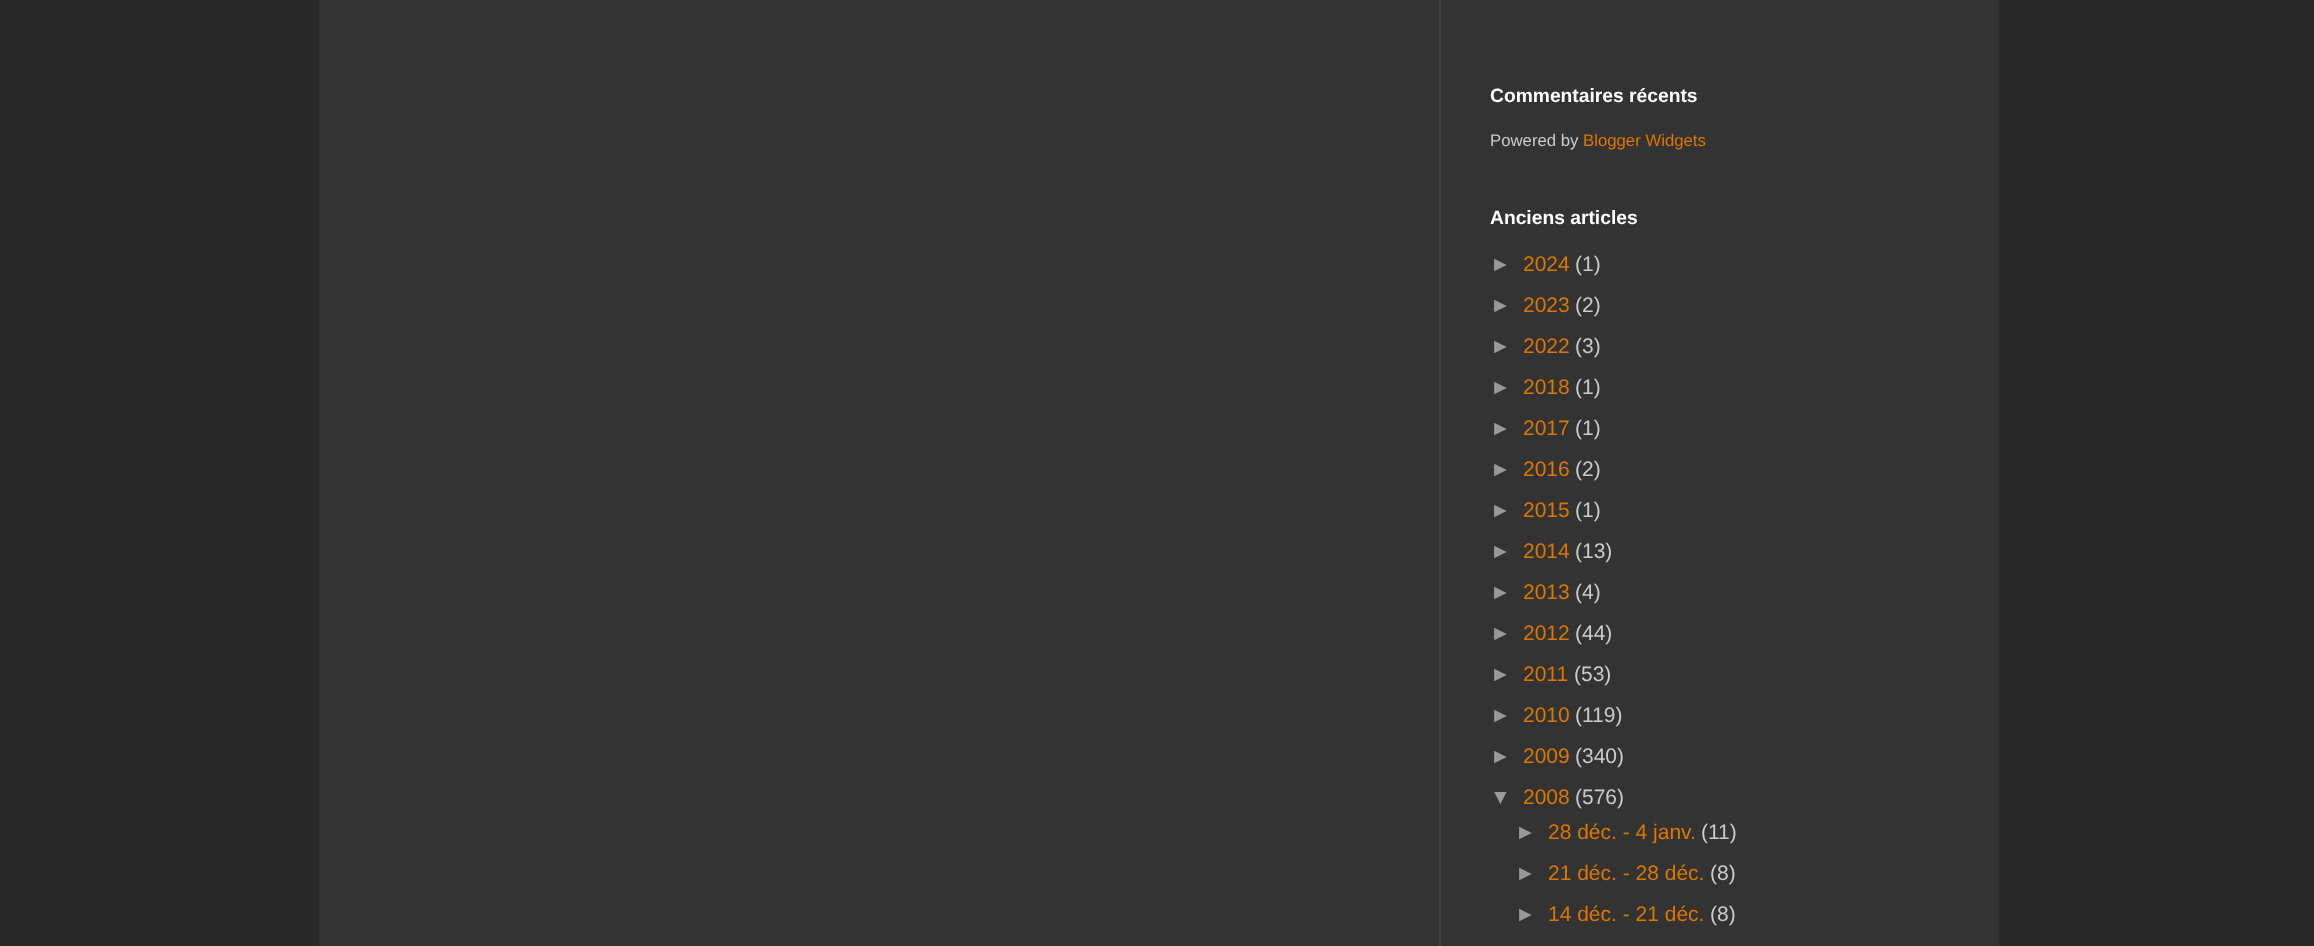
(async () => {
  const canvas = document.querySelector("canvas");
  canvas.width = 2314;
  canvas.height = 946;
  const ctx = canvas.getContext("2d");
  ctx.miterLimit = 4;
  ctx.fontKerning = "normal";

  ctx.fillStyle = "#292929";
  ctx.fillRect(0, 0, 2314, 946);
  ctx.fillStyle = "#333333";
  ctx.fillRect(319, 0, 1680, 946);
  ctx.fillStyle = "#404040";
  ctx.fillRect(1439, 0, 2, 946);
  ctx.font = "bold 19.25px Liberation Sans";
  ctx.fillStyle = "#ffffff";
  ctx.fillText("Commentaires récents", 1490, 102);
  ctx.font = "16.75px Liberation Sans";
  ctx.fillStyle = "#cccccc";
  ctx.fillText("Powered by", 1490, 146);
  ctx.fillStyle = "#dd7700";
  ctx.fillText("Blogger Widgets", 1583, 146);
  ctx.font = "bold 19.25px Liberation Sans";
  ctx.fillStyle = "#ffffff";
  ctx.fillText("Anciens articles", 1490, 224);
  ctx.font = "21px Liberation Sans";
  ctx.fillStyle = "#999999";
  ctx.fillText("►", 1490, 271);
  ctx.fillStyle = "#dd7700";
  ctx.fillText("2024", 1523, 271);
  ctx.fillStyle = "#cccccc";
  ctx.fillText("(1)", 1575, 271);
  ctx.fillStyle = "#999999";
  ctx.fillText("►", 1490, 312);
  ctx.fillStyle = "#dd7700";
  ctx.fillText("2023", 1523, 312);
  ctx.fillStyle = "#cccccc";
  ctx.fillText("(2)", 1575, 312);
  ctx.fillStyle = "#999999";
  ctx.fillText("►", 1490, 353);
  ctx.fillStyle = "#dd7700";
  ctx.fillText("2022", 1523, 353);
  ctx.fillStyle = "#cccccc";
  ctx.fillText("(3)", 1575, 353);
  ctx.fillStyle = "#999999";
  ctx.fillText("►", 1490, 394);
  ctx.fillStyle = "#dd7700";
  ctx.fillText("2018", 1523, 394);
  ctx.fillStyle = "#cccccc";
  ctx.fillText("(1)", 1575, 394);
  ctx.fillStyle = "#999999";
  ctx.fillText("►", 1490, 435);
  ctx.fillStyle = "#dd7700";
  ctx.fillText("2017", 1523, 435);
  ctx.fillStyle = "#cccccc";
  ctx.fillText("(1)", 1575, 435);
  ctx.fillStyle = "#999999";
  ctx.fillText("►", 1490, 476);
  ctx.fillStyle = "#dd7700";
  ctx.fillText("2016", 1523, 476);
  ctx.fillStyle = "#cccccc";
  ctx.fillText("(2)", 1575, 476);
  ctx.fillStyle = "#999999";
  ctx.fillText("►", 1490, 517);
  ctx.fillStyle = "#dd7700";
  ctx.fillText("2015", 1523, 517);
  ctx.fillStyle = "#cccccc";
  ctx.fillText("(1)", 1575, 517);
  ctx.fillStyle = "#999999";
  ctx.fillText("►", 1490, 558);
  ctx.fillStyle = "#dd7700";
  ctx.fillText("2014", 1523, 558);
  ctx.fillStyle = "#cccccc";
  ctx.fillText("(13)", 1575, 558);
  ctx.fillStyle = "#999999";
  ctx.fillText("►", 1490, 599);
  ctx.fillStyle = "#dd7700";
  ctx.fillText("2013", 1523, 599);
  ctx.fillStyle = "#cccccc";
  ctx.fillText("(4)", 1575, 599);
  ctx.fillStyle = "#999999";
  ctx.fillText("►", 1490, 640);
  ctx.fillStyle = "#dd7700";
  ctx.fillText("2012", 1523, 640);
  ctx.fillStyle = "#cccccc";
  ctx.fillText("(44)", 1575, 640);
  ctx.fillStyle = "#999999";
  ctx.fillText("►", 1490, 681);
  ctx.fillStyle = "#dd7700";
  ctx.fillText("2011", 1523, 681);
  ctx.fillStyle = "#cccccc";
  ctx.fillText("(53)", 1574, 681);
  ctx.fillStyle = "#999999";
  ctx.fillText("►", 1490, 722);
  ctx.fillStyle = "#dd7700";
  ctx.fillText("2010", 1523, 722);
  ctx.fillStyle = "#cccccc";
  ctx.fillText("(119)", 1575, 722);
  ctx.fillStyle = "#999999";
  ctx.fillText("►", 1490, 763);
  ctx.fillStyle = "#dd7700";
  ctx.fillText("2009", 1523, 763);
  ctx.fillStyle = "#cccccc";
  ctx.fillText("(340)", 1575, 763);
  ctx.fillStyle = "#999999";
  ctx.fillText("▼", 1490, 804);
  ctx.fillStyle = "#dd7700";
  ctx.fillText("2008", 1523, 804);
  ctx.fillStyle = "#cccccc";
  ctx.fillText("(576)", 1575, 804);
  ctx.fillStyle = "#999999";
  ctx.fillText("►", 1515, 839);
  ctx.fillStyle = "#dd7700";
  ctx.fillText("28 déc. - 4 janv.", 1548, 839);
  ctx.fillStyle = "#cccccc";
  ctx.fillText("(11)", 1701, 839);
  ctx.fillStyle = "#999999";
  ctx.fillText("►", 1515, 880);
  ctx.fillStyle = "#dd7700";
  ctx.fillText("21 déc. - 28 déc.", 1548, 880);
  ctx.fillStyle = "#cccccc";
  ctx.fillText("(8)", 1710, 880);
  ctx.fillStyle = "#999999";
  ctx.fillText("►", 1515, 921);
  ctx.fillStyle = "#dd7700";
  ctx.fillText("14 déc. - 21 déc.", 1548, 921);
  ctx.fillStyle = "#cccccc";
  ctx.fillText("(8)", 1710, 921);
})();
